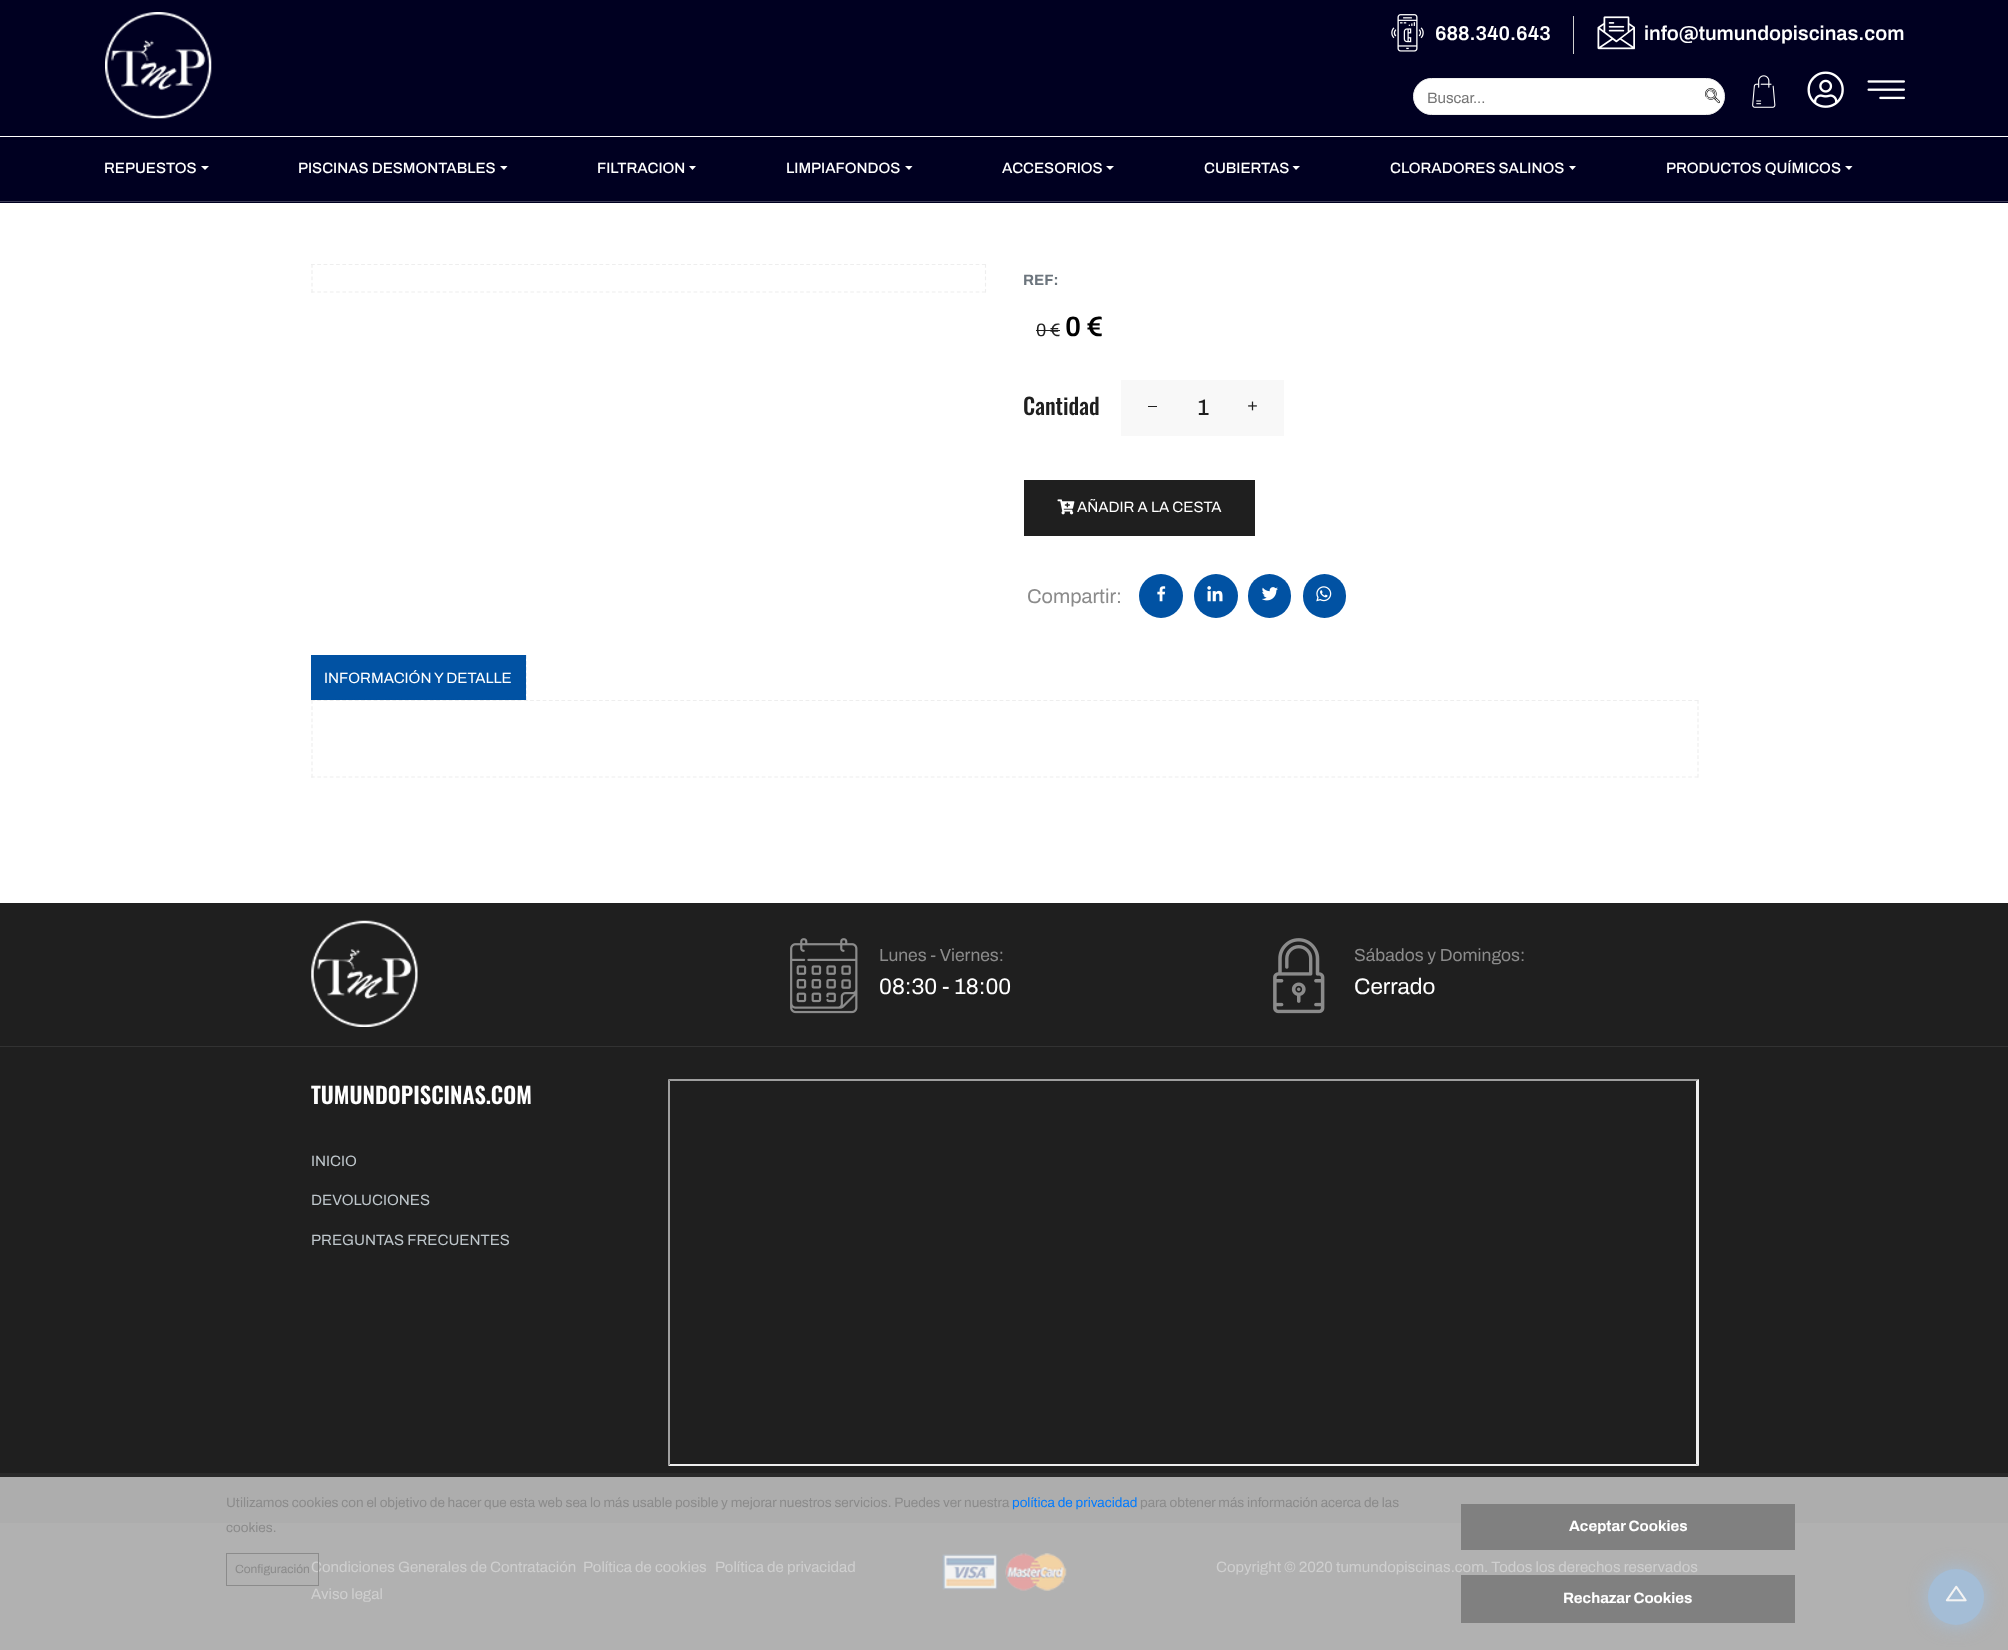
(async () => {
  const canvas = document.querySelector("canvas");
  canvas.width = 2008;
  canvas.height = 1650;
  const ctx = canvas.getContext("2d");
  ctx.miterLimit = 4;
  ctx.fontKerning = "normal";
  async function loadImage(src) {
    const img = new Image();
    img.src = src;
    await img.decode();
    return img;
  }
  let path;

  ctx.fillStyle = "#ffffff";
  ctx.fillRect(0, 0, 2008, 1650);
  ctx.fillStyle = "#000021";
  ctx.fillRect(0, 0, 2008, 136);
  ctx.drawImage(await loadImage("img/1.png"), 105, 12, 107, 107);
  ctx.drawImage(await loadImage("img/2.png"), 1391, 14, 33, 38);
  ctx.fillStyle = "#d0d0d0";
  ctx.fillRect(1573, 16, 1, 38);
  ctx.drawImage(await loadImage("img/3.png"), 1597, 16, 38, 34);
  ctx.fillStyle = "#ffffff";
  ctx.beginPath();
  ctx.roundRect(1413.5, 78.5, 311, 36, 18);
  ctx.fill();
  ctx.strokeStyle = "#eeeeee";
  ctx.stroke();
  ctx.drawImage(await loadImage("img/4.png"), 1705, 88, 15, 16);
  ctx.drawImage(await loadImage("img/5.png"), 1752, 75, 24, 33);
  ctx.drawImage(await loadImage("img/6.png"), 1807, 71, 37, 37);
  ctx.drawImage(await loadImage("img/7.png"), 1867, 80, 38, 20);
  ctx.fillStyle = "#000021";
  ctx.fillRect(0, 137, 2008, 66);
  ctx.fillStyle = "#3d3d57";
  ctx.fillRect(0, 201, 2008, 1);
  ctx.fillStyle = "#ffffff";
  path = new Path2D("M201 166H209L205 170Z");
  ctx.fill(path);
  path = new Path2D("M500 166H507.5L504 170Z");
  ctx.fill(path);
  path = new Path2D("M689 166H696L692.5 170Z");
  ctx.fill(path);
  path = new Path2D("M905 166H912.5L909 170Z");
  ctx.fill(path);
  path = new Path2D("M1106 166H1114L1110 170Z");
  ctx.fill(path);
  path = new Path2D("M1292.5 166H1300L1296 170Z");
  ctx.fill(path);
  path = new Path2D("M1569 166H1576L1572.5 170Z");
  ctx.fill(path);
  path = new Path2D("M1845 166H1852.5L1849 170Z");
  ctx.fill(path);
  path = new Path2D("M311 264.5H986");
  ctx.lineWidth = 1.2;
  ctx.setLineDash([3.75, 2.52]);
  ctx.stroke(path);
  path = new Path2D("M985.5 264V292.5");
  ctx.setLineDash([3.75, 2.5]);
  ctx.stroke(path);
  path = new Path2D("M311 292H986");
  ctx.setLineDash([3.75, 2.52]);
  ctx.stroke(path);
  path = new Path2D("M312 264V292.5");
  ctx.setLineDash([3.75, 2.5]);
  ctx.stroke(path);
  for (const [x, y, w, h, color] of [
    [1036, 330, 24, 1, "#1f1f1f"],
    [1121, 380, 163, 56, "#f8f8f8"],
    [1148, 406, 9, 1, "#1f1f1f"],
  ]) {
    ctx.fillStyle = color;
    ctx.fillRect(x, y, w, h);
  }
  ctx.drawImage(await loadImage("img/8.png"), 1248, 401, 9, 10);
  ctx.fillRect(1024, 480, 231, 56);
  ctx.drawImage(await loadImage("img/9.png"), 1057, 499, 18, 16);
  ctx.fillStyle = "#0152a3";
  ctx.beginPath();
  ctx.arc(1161, 596, 22, 0, Math.PI * 2);
  ctx.fill();
  ctx.drawImage(await loadImage("img/10.png"), 1157, 586, 9, 16);
  ctx.beginPath();
  ctx.arc(1216, 596, 22, 0, Math.PI * 2);
  ctx.fill();
  ctx.drawImage(await loadImage("img/11.png"), 1207, 586, 16, 16);
  ctx.beginPath();
  ctx.roundRect(1248, 574, 43, 44, 21.5);
  ctx.fill();
  ctx.drawImage(await loadImage("img/12.png"), 1262, 587, 16, 14);
  ctx.beginPath();
  ctx.roundRect(1303, 574, 43, 44, 21.5);
  ctx.fill();
  ctx.drawImage(await loadImage("img/13.png"), 1316, 586, 16, 16);
  ctx.fillRect(311, 655, 215, 45);
  path = new Path2D("M311 655.5H526");
  ctx.strokeStyle = "#0152a3";
  ctx.setLineDash([3.75, 2.46]);
  ctx.stroke(path);
  path = new Path2D("M525.5 655V700");
  ctx.setLineDash([3.75, 2.14]);
  ctx.stroke(path);
  path = new Path2D("M311 699.5H526");
  ctx.setLineDash([3.75, 2.46]);
  ctx.stroke(path);
  path = new Path2D("M311 700.5H1699");
  ctx.strokeStyle = "#eeeeee";
  ctx.setLineDash([3.75, 2.51]);
  ctx.stroke(path);
  path = new Path2D("M1698 700V777.5");
  ctx.setLineDash([3.75, 2.4]);
  ctx.stroke(path);
  path = new Path2D("M311 777H1699");
  ctx.setLineDash([3.75, 2.51]);
  ctx.stroke(path);
  path = new Path2D("M312 700V777.5");
  ctx.setLineDash([3.75, 2.4]);
  ctx.stroke(path);
  ctx.fillStyle = "#1f1f1f";
  ctx.fillRect(0, 903, 2008, 570);
  ctx.fillStyle = "#323232";
  ctx.fillRect(0, 1046, 2008, 1);
  ctx.drawImage(await loadImage("img/14.png"), 311, 920, 107, 107);
  ctx.drawImage(await loadImage("img/15.png"), 790, 938, 68, 76);
  ctx.drawImage(await loadImage("img/16.png"), 1273, 938, 52, 76);
  ctx.fillStyle = "#adadad";
  ctx.fillRect(0, 1477, 2008, 46);
  ctx.fillStyle = "#9f9f9f";
  path = new Path2D("M668 1079H1699L1696 1081H670Z");
  ctx.fill(path);
  ctx.fillStyle = "#eeeeee";
  path = new Path2D("M1699 1079V1466L1696 1464V1081Z");
  ctx.fill(path);
  path = new Path2D("M1699 1466H668L670 1464H1696Z");
  ctx.fill(path);
  ctx.fillStyle = "#9f9f9f";
  path = new Path2D("M668 1466V1079L670 1081V1464Z");
  ctx.fill(path);
  ctx.fillStyle = "#b1b1b1";
  ctx.fillRect(0, 1523, 2008, 127);
  ctx.drawImage(await loadImage("img/17.png"), 942, 1553, 125, 38);
  for (const [x, y, w, h, color] of [
    [0, 1473, 2008, 4, "#292929"],
    [1461, 1504, 334, 46, "#808080"],
    [1461, 1575, 334, 48, "#808080"],
  ]) {
    ctx.fillStyle = color;
    ctx.fillRect(x, y, w, h);
  }
  ctx.fillStyle = "#a4bdd6";
  ctx.filter = "blur(9.5px)";
  ctx.beginPath();
  ctx.roundRect(1928, 1569, 56, 56, 28);
  ctx.fill();
  ctx.filter = "none";
  ctx.beginPath();
  ctx.arc(1956, 1597, 28, 0, Math.PI * 2);
  ctx.fill();
  ctx.drawImage(await loadImage("img/18.png"), 1945, 1585, 22, 17);
  ctx.font = "600 20px Archivo";
  ctx.fillStyle = "#ffffff";
  ctx.fillText("688.340.643", 1435, 40);
  ctx.fillText("info@tumundopiscinas.com", 1644, 40);
  ctx.font = "15px Archivo";
  ctx.fillStyle = "#757575";
  ctx.fillText("Buscar...", 1427, 103);
  ctx.font = "500 15px Archivo";
  ctx.fillStyle = "#ffffff";
  for (const [text, x, y] of [
    ["REPUESTOS", 104, 173],
    ["PISCINAS DESMONTABLES", 298, 173],
    ["FILTRACION", 597, 173],
    ["LIMPIAFONDOS", 786, 173],
    ["ACCESORIOS", 1002, 173],
    ["CUBIERTAS", 1204, 173],
    ["CLORADORES SALINOS", 1390, 173],
    ["PRODUCTOS QUÍMICOS", 1666, 173],
  ]) {
    ctx.fillText(text, x, y);
  }
  ctx.font = "bold 15px Archivo";
  ctx.fillStyle = "#6c757d";
  ctx.fillText("REF:", 1023, 285);
  ctx.font = "18px Archivo";
  ctx.fillStyle = "#1f1f1f";
  ctx.fillText("0 €", 1036, 336);
  ctx.font = "600 28px Archivo";
  ctx.fillStyle = "#000000";
  ctx.fillText("0 €", 1065, 336);
  ctx.font = "500 22.5px Oswald";
  ctx.fillStyle = "#1f1f1f";
  ctx.fillText("Cantidad", 1023, 415);
  ctx.font = "500 22.5px Archivo";
  ctx.fillText("1", 1197, 415);
  ctx.font = "15px Archivo";
  ctx.fillStyle = "#ffffff";
  ctx.fillText("AÑADIR A LA CESTA", 1077, 512);
  ctx.font = "20px Archivo";
  ctx.fillStyle = "#8b8b8b";
  ctx.fillText("Compartir:", 1027, 603);
  ctx.font = "15px Archivo";
  ctx.fillStyle = "#ffffff";
  ctx.fillText("INFORMACIÓN Y DETALLE", 324, 683);
  ctx.font = "17.5px Archivo";
  ctx.fillStyle = "#8b8b8b";
  ctx.fillText("Lunes - Viernes:", 879, 961);
  ctx.font = "22.5px Archivo";
  ctx.fillStyle = "#ffffff";
  ctx.fillText("08:30 - 18:00", 879, 994);
  ctx.font = "17.5px Archivo";
  ctx.fillStyle = "#8b8b8b";
  ctx.fillText("Sábados y Domingos:", 1354, 961);
  ctx.font = "22.5px Archivo";
  ctx.fillStyle = "#ffffff";
  ctx.fillText("Cerrado", 1354, 994);
  ctx.font = "600 22.5px Oswald";
  ctx.fillText("TUMUNDOPISCINAS.COM", 311, 1104);
  ctx.font = "15px Archivo";
  ctx.fillStyle = "#bec6cb";
  for (const [text, x, y] of [
    ["INICIO", 311, 1166],
    ["DEVOLUCIONES", 311, 1205],
    ["PREGUNTAS FRECUENTES", 311, 1245],
  ]) {
    ctx.fillText(text, x, y);
  }
  ctx.fillStyle = "#cfcfcf";
  for (const [text, x, y] of [
    ["Condiciones Generales de Contratación", 311, 1572],
    ["Política de cookies", 583, 1572],
    ["Política de privacidad", 715, 1572],
    ["Aviso legal", 311, 1599],
    ["Copyright © 2020 tumundopiscinas.com. Todos los derechos reservados", 1216, 1572],
  ]) {
    ctx.fillText(text, x, y);
  }
  ctx.font = "13.5px Archivo";
  ctx.fillStyle = "#8b8b8b";
  ctx.fillText("Utilizamos cookies con el objetivo de hacer que esta web sea lo más usable posible y mejorar nuestros servicios. Puedes ver nuestra", 226, 1507);
  ctx.fillStyle = "#007bff";
  ctx.fillText("política de privacidad", 1012, 1507);
  ctx.fillStyle = "#8b8b8b";
  ctx.fillText("para obtener más información acerca de las", 1140, 1507);
  ctx.fillText("cookies.", 226, 1532);
  ctx.strokeStyle = "#8b8b8b";
  ctx.lineWidth = 1;
  ctx.setLineDash([]);
  ctx.strokeRect(226.5, 1553.5, 92, 32);
  ctx.font = "12px Archivo";
  ctx.fillText("Configuración", 235, 1573);
  ctx.font = "bold 15px Archivo";
  ctx.fillStyle = "#ffffff";
  ctx.fillText("Aceptar Cookies", 1569, 1531);
  ctx.fillText("Rechazar Cookies", 1563, 1603);
})();
